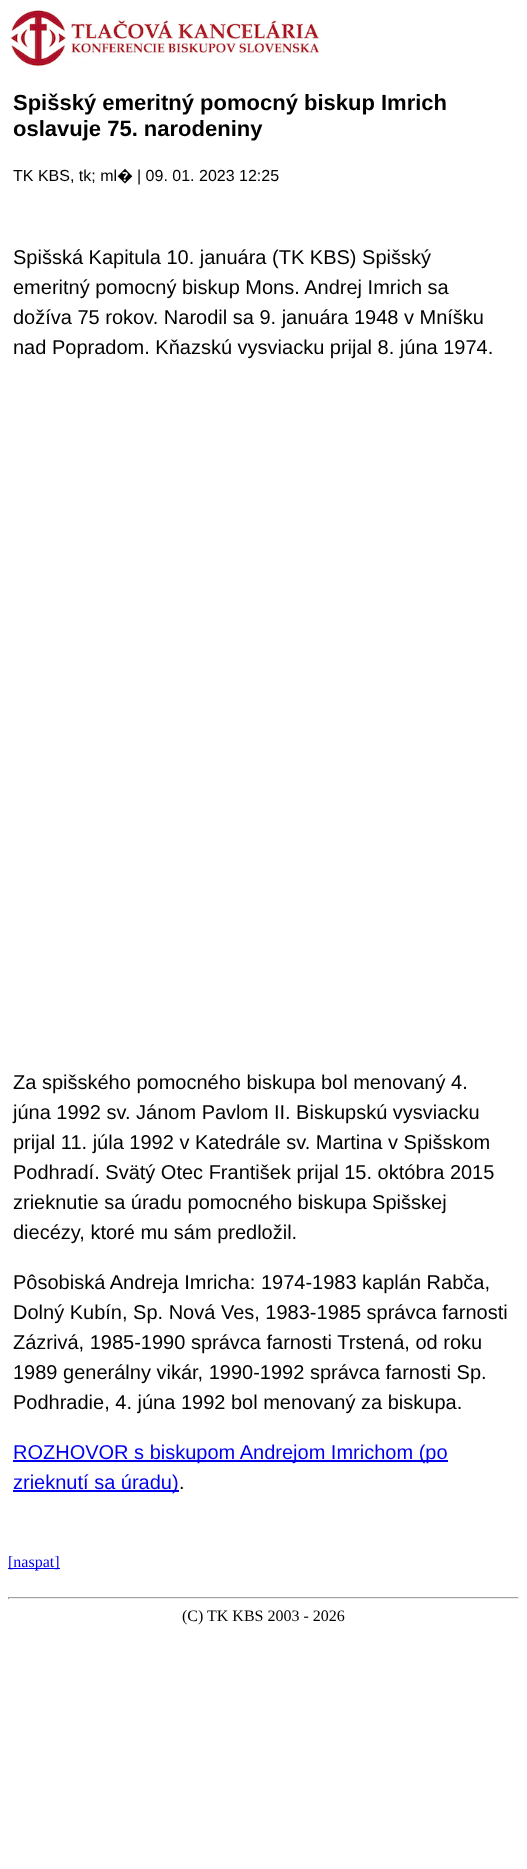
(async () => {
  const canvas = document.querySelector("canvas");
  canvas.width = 527;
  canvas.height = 1869;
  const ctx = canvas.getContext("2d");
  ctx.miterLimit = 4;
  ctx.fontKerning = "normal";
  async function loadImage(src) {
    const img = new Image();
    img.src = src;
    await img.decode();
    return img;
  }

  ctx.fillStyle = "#ffffff";
  ctx.fillRect(0, 0, 527, 1869);
  ctx.drawImage(await loadImage("img/1.png"), 10, 10, 309, 57);
  for (const [x, y, w, h, color] of [
    [13, 1460, 435, 2, "#0000ee"],
    [13, 1490, 166, 2, "#0000ee"],
    [8, 1568, 52, 1, "#0000ee"],
    [8, 1597, 511, 1, "#9f9f9f"],
    [518, 1597, 1, 2, "#eeeeee"],
    [8, 1598, 511, 1, "#eeeeee"],
    [8, 1597, 1, 2, "#9f9f9f"],
  ]) {
    ctx.fillStyle = color;
    ctx.fillRect(x, y, w, h);
  }
  ctx.font = "bold 22px Liberation Sans";
  ctx.fillStyle = "#000000";
  ctx.fillText("Spišský emeritný pomocný biskup Imrich", 13, 110);
  ctx.fillText("oslavuje 75. narodeniny", 13, 136);
  ctx.font = "16px Liberation Sans";
  ctx.fillText("TK KBS, tk; ml", 13, 181);
  ctx.font = "16px Noto Sans";
  ctx.fillText("�", 117, 181);
  ctx.font = "16px Liberation Sans";
  ctx.fillText("| 09. 01. 2023 12:25", 137, 181);
  ctx.font = "20px Liberation Sans";
  for (const [text, x, y] of [
    ["Spišská Kapitula 10. januára (TK KBS) Spišský", 13, 264],
    ["emeritný pomocný biskup Mons. Andrej Imrich sa", 13, 294],
    ["dožíva 75 rokov. Narodil sa 9. januára 1948 v Mníšku", 13, 324],
    ["nad Popradom. Kňazskú vysviacku prijal 8. júna 1974.", 13, 354],
    ["Za spišského pomocného biskupa bol menovaný 4.", 13, 1089],
    ["júna 1992 sv. Jánom Pavlom II. Biskupskú vysviacku", 13, 1119],
    ["prijal 11. júla 1992 v Katedrále sv. Martina v Spišskom", 13, 1149],
    ["Podhradí. Svätý Otec František prijal 15. októbra 2015", 13, 1179],
    ["zrieknutie sa úradu pomocného biskupa Spišskej", 13, 1209],
    ["diecézy, ktoré mu sám predložil.", 13, 1239],
    ["Pôsobiská Andreja Imricha: 1974-1983 kaplán Rabča,", 13, 1289],
    ["Dolný Kubín, Sp. Nová Ves, 1983-1985 správca farnosti", 13, 1319],
    ["Zázrivá, 1985-1990 správca farnosti Trstená, od roku", 13, 1349],
    ["1989 generálny vikár, 1990-1992 správca farnosti Sp.", 13, 1379],
    ["Podhradie, 4. júna 1992 bol menovaný za biskupa.", 13, 1409],
  ]) {
    ctx.fillText(text, x, y);
  }
  ctx.fillStyle = "#0000ee";
  ctx.fillText("ROZHOVOR s biskupom Andrejom Imrichom (po", 13, 1459);
  ctx.fillText("zrieknutí sa úradu)", 13, 1489);
  ctx.fillStyle = "#000000";
  ctx.fillText(".", 179, 1489);
  ctx.font = "16px Liberation Serif";
  ctx.fillStyle = "#0000ee";
  ctx.fillText("[naspat]", 8, 1567);
  ctx.fillStyle = "#000000";
  ctx.fillText("(C) TK KBS 2003 - 2026", 182, 1621);
})();
